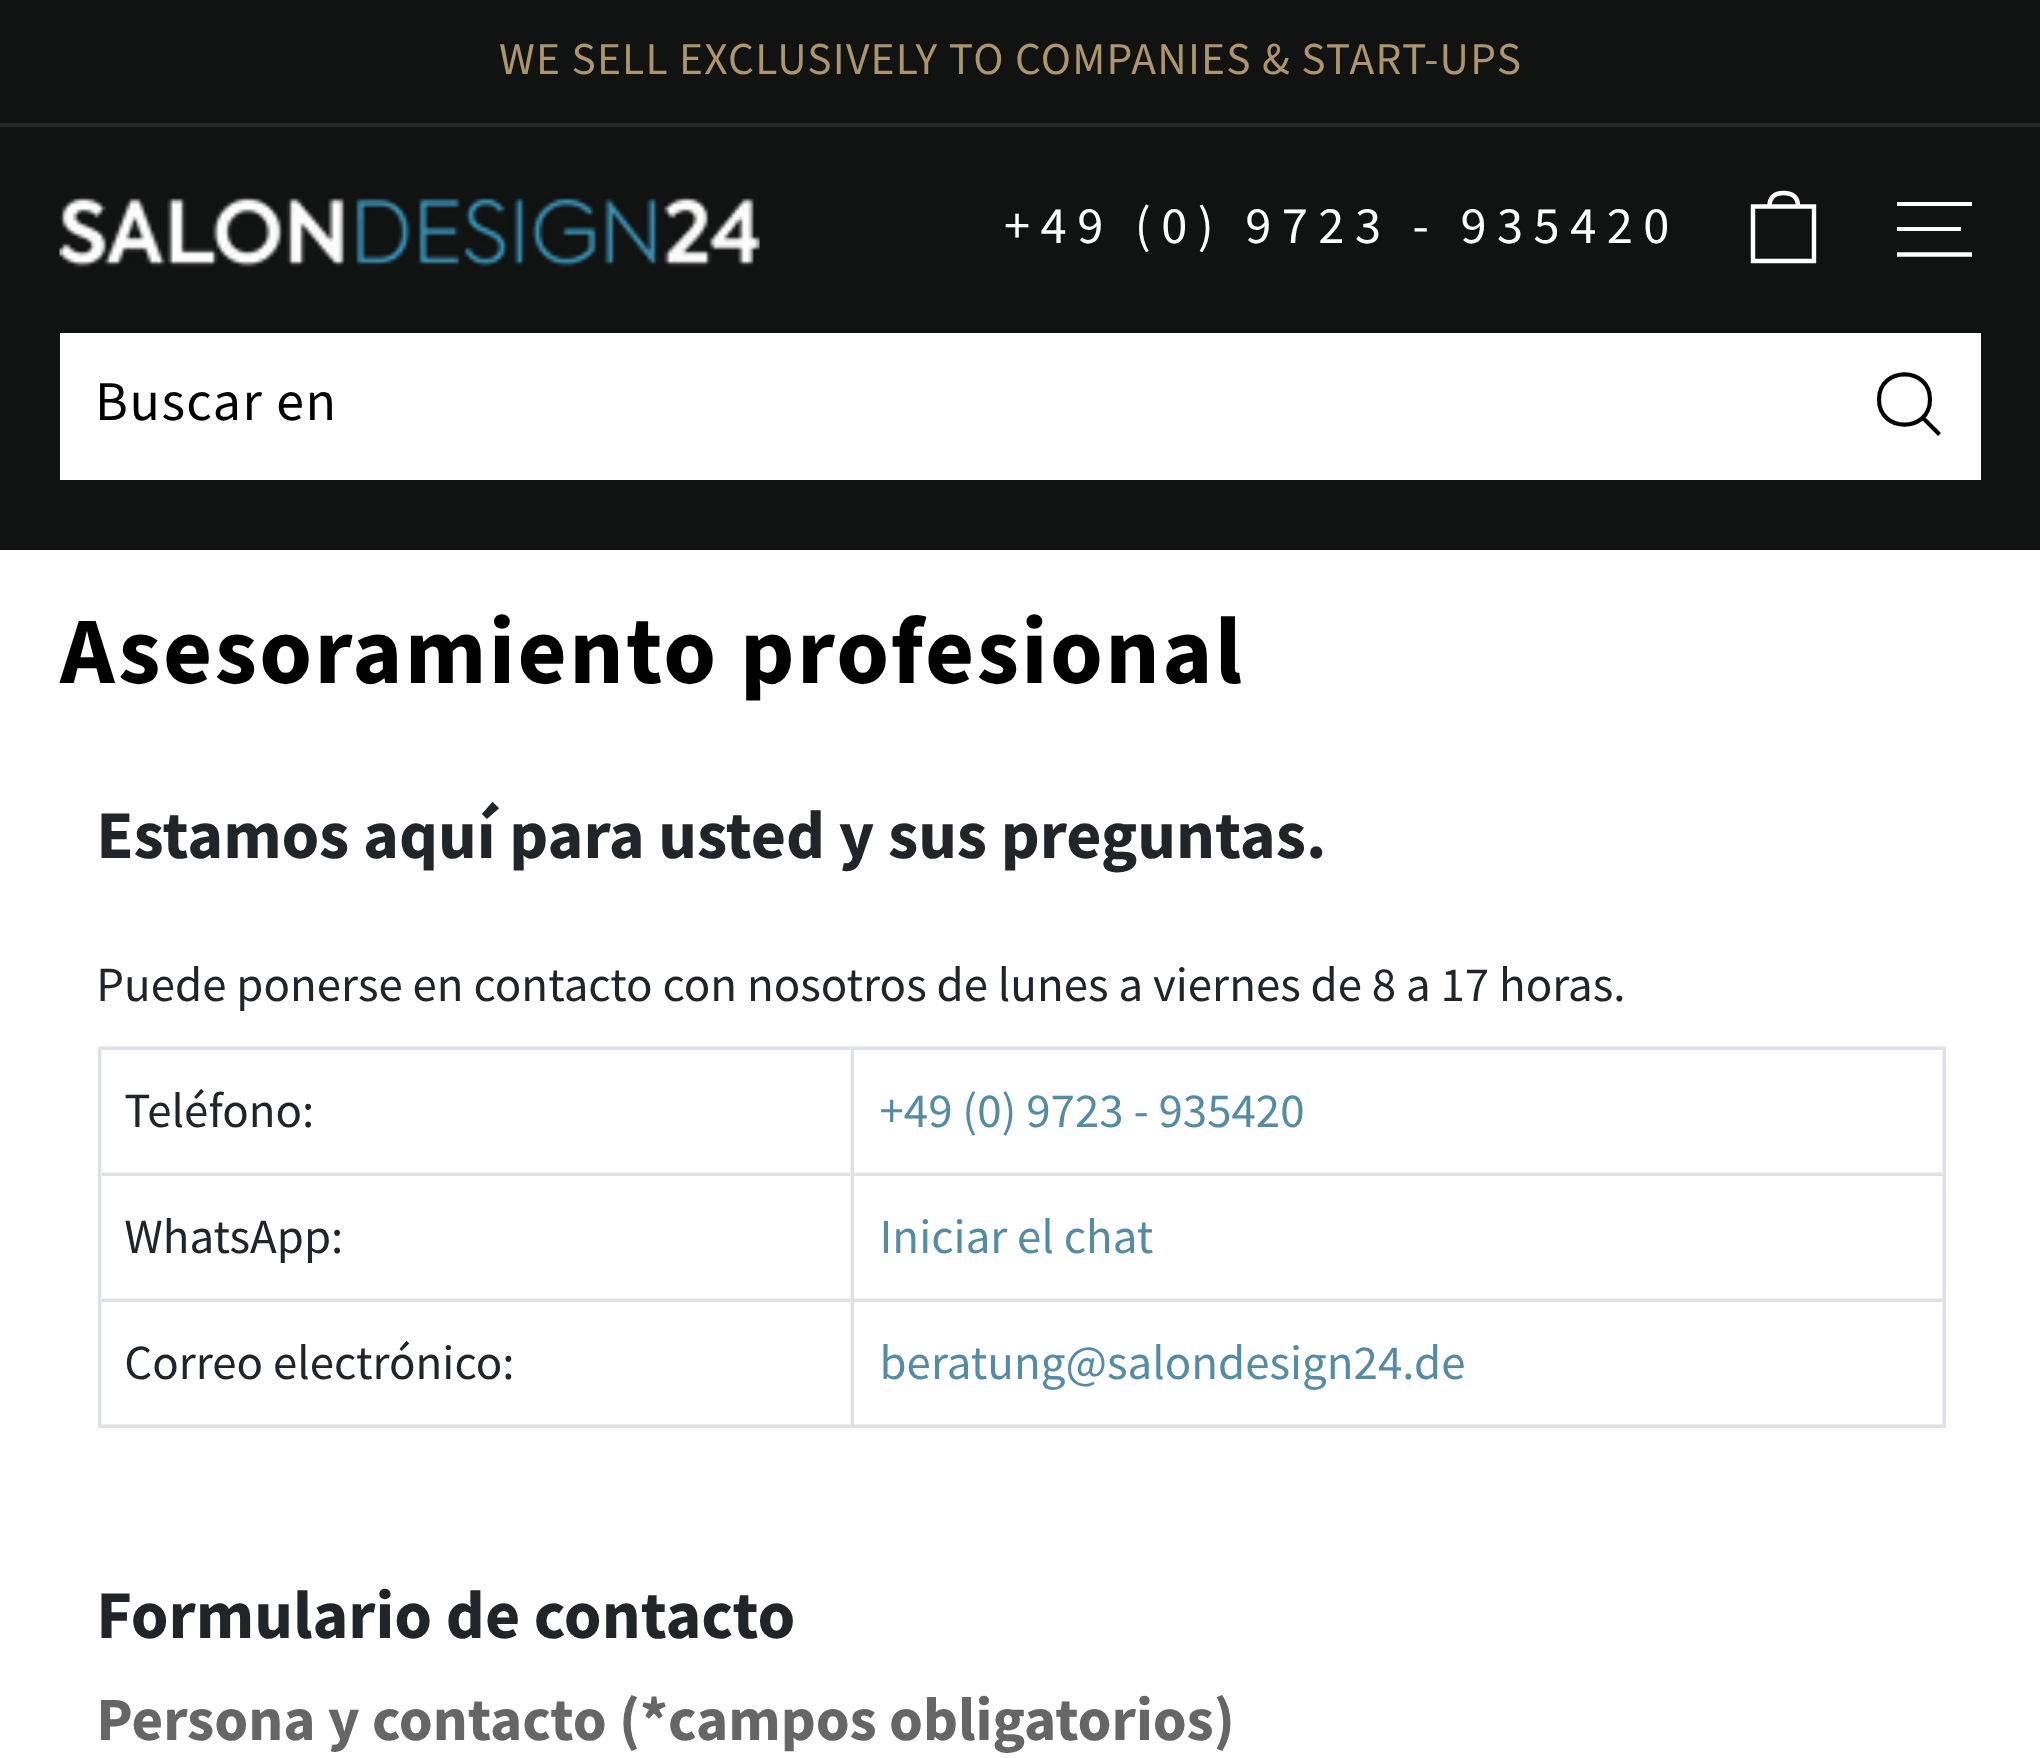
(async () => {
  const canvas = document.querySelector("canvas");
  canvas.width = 2040;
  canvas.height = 1758;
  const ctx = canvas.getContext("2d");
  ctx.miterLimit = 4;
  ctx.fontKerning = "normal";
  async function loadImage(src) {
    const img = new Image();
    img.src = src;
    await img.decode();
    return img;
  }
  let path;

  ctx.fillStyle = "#ffffff";
  ctx.fillRect(0, 0, 2040, 1758);
  for (const [x, y, w, h, color] of [
    [0, 0, 2040, 123, "#111212"],
    [0, 123, 2040, 4, "#252626"],
    [0, 127, 2040, 206, "#111212"],
  ]) {
    ctx.fillStyle = color;
    ctx.fillRect(x, y, w, h);
  }
  ctx.drawImage(await loadImage("img/1.png"), 59, 196, 701, 72);
  path = new Path2D("M1769.5 206.5C1769.5 196 1775.5 193 1783.5 193C1791.5 193 1798 196 1798 206.5");
  ctx.strokeStyle = "#ffffff";
  ctx.lineWidth = 4.4;
  ctx.stroke(path);
  path = new Path2D("M1753 206.5H1814V261H1753Z");
  ctx.stroke(path);
  ctx.fillStyle = "#ffffff";
  ctx.fillRect(1897, 202, 75, 4);
  ctx.fillRect(1897, 227, 64, 4);
  path = new Path2D("M1897 254.5H1972");
  ctx.stroke(path);
  ctx.fillStyle = "#111212";
  path = new Path2D("M0 333V550H2040V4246H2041V333Z");
  ctx.fill(path);
  ctx.fillStyle = "#ffffff";
  ctx.fillRect(60, 333, 1921, 147);
  path = new Path2D("M1930 399.5C1930 433 1879 433 1879 399.5C1879 366 1930 366 1930 399.5ZM1939.5 434.5L1923 418");
  ctx.strokeStyle = "#000000";
  ctx.lineWidth = 4.1;
  ctx.stroke(path);
  ctx.drawImage(await loadImage("img/2.png"), 98, 801, 1848, 952);
  ctx.letterSpacing = "1.2px";
  ctx.font = "45.5px Source Sans Pro";
  ctx.fillStyle = "#ae946d";
  ctx.fillText("WE SELL EXCLUSIVELY TO COMPANIES & START-UPS", 499, 74);
  ctx.letterSpacing = "10.5px";
  ctx.font = "52.5px Source Sans Pro";
  ctx.fillStyle = "#ffffff";
  ctx.fillText("+49 (0) 9723 - 935420", 1004, 243);
  ctx.letterSpacing = "1.5px";
  ctx.font = "56px Source Sans Pro";
  ctx.fillStyle = "#000000";
  ctx.fillText("Buscar en", 95, 420);
  ctx.letterSpacing = "2.4px";
  ctx.font = "bold 95.25px Source Sans Pro";
  ctx.fillText("Asesoramiento profesional", 60, 683);
})();
